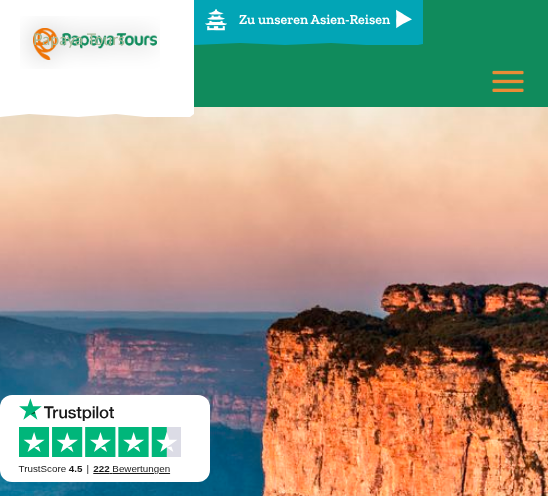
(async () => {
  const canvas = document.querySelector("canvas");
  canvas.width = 548;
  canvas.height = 496;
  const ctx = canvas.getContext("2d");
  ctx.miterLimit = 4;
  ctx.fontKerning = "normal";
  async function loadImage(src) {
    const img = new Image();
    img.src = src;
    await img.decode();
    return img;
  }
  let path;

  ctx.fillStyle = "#ffffff";
  ctx.fillRect(0, 0, 548, 496);
  ctx.fillStyle = "#108b5c";
  ctx.fillRect(194, 0, 354, 107);
  ctx.fillStyle = "#02a5b6";
  path = new Path2D("M194 0V45L240 43L285 45L331 43L366 45H418L423 44V0Z");
  ctx.fill(path);
  ctx.drawImage(await loadImage("img/1.png"), 205, 9, 22, 22);
  ctx.drawImage(await loadImage("img/2.png"), 396, 9, 16, 20);
  ctx.drawImage(await loadImage("img/3.png"), 492, 70, 32, 22);
  ctx.drawImage(await loadImage("img/5.png"), 0, 107, 548, 389);
  ctx.fillStyle = "#ffffff";
  path = new Path2D("M0 0V117L29 114L78 117L116 114L145 117H190L194 114V0Z");
  ctx.fill(path);
  ctx.drawImage(await loadImage("img/4.png"), 20, 16, 140, 53);
  ctx.beginPath();
  ctx.roundRect(0, 395, 210, 87, 12);
  ctx.fill();
  ctx.drawImage(await loadImage("img/6.png"), 18, 398, 163, 76);
  ctx.font = "600 14px Zilla Slab";
  ctx.fillText("Zu unseren Asien-Reisen", 239, 24);
  ctx.font = "16px Lato";
  ctx.fillStyle = "#a6b998";
  ctx.fillText("Papaya Tours", 33, 45);
})();
